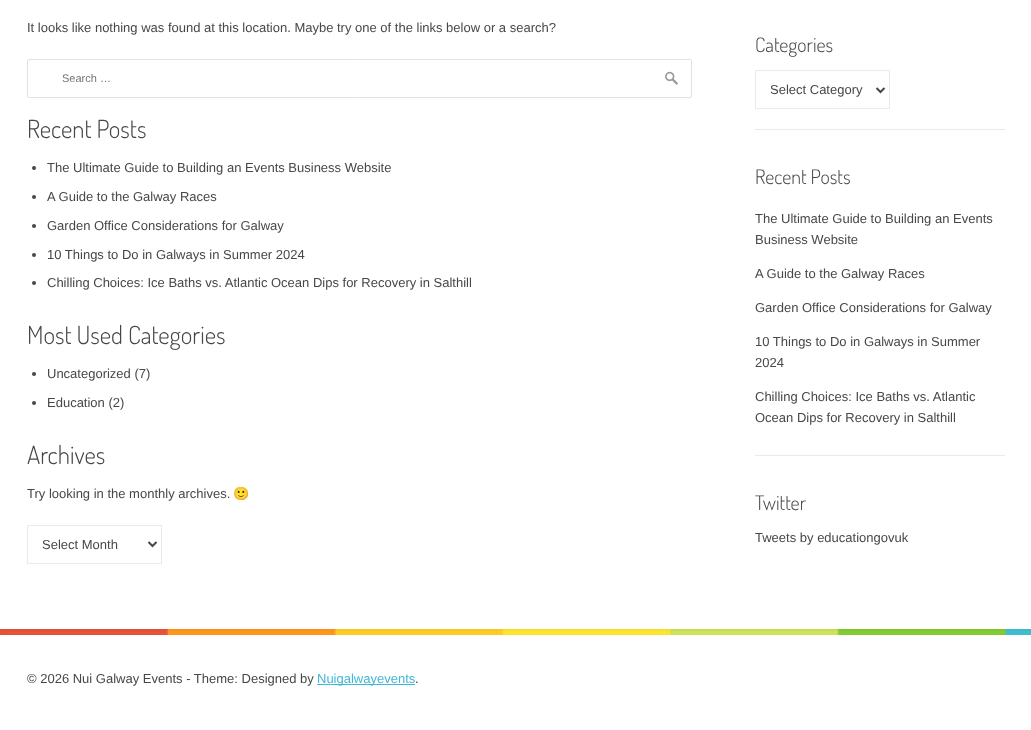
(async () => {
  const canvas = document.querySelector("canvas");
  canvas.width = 1031;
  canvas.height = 730;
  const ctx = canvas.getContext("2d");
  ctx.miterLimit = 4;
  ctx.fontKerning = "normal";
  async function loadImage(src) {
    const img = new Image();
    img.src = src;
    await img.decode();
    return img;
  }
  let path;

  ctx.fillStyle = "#ffffff";
  ctx.fillRect(0, 0, 1031, 730);
  ctx.drawImage(await loadImage("img/1.png"), 665, 71, 13, 14);
  ctx.beginPath();
  ctx.roundRect(27.5, 59.5, 664, 38, 1.5);
  ctx.strokeStyle = "#e2e2e2";
  ctx.stroke();
  ctx.fillStyle = "#474747";
  ctx.beginPath();
  ctx.arc(34, 168, 2, 0, Math.PI * 2);
  ctx.fill();
  ctx.beginPath();
  ctx.arc(34, 197, 2, 0, Math.PI * 2);
  ctx.fill();
  ctx.beginPath();
  ctx.arc(34, 226, 2, 0, Math.PI * 2);
  ctx.fill();
  ctx.beginPath();
  ctx.arc(34, 255, 2, 0, Math.PI * 2);
  ctx.fill();
  ctx.beginPath();
  ctx.arc(34, 283, 2, 0, Math.PI * 2);
  ctx.fill();
  ctx.beginPath();
  ctx.arc(34, 374, 2, 0, Math.PI * 2);
  ctx.fill();
  ctx.beginPath();
  ctx.arc(34, 403, 2, 0, Math.PI * 2);
  ctx.fill();
  ctx.strokeStyle = "#eaeaea";
  ctx.strokeRect(27.5, 525.5, 134, 38);
  path = new Path2D("M148.5 542L152.5 546L156.5 542");
  ctx.strokeStyle = "#474747";
  ctx.lineWidth = 2;
  ctx.stroke(path);
  ctx.fillStyle = "#eaeaea";
  ctx.fillRect(755, 129, 250, 1);
  ctx.strokeStyle = "#eaeaea";
  ctx.lineWidth = 1;
  ctx.strokeRect(755.5, 70.5, 134, 38);
  path = new Path2D("M876.5 88L880.5 92L884.5 88");
  ctx.strokeStyle = "#474747";
  ctx.lineWidth = 2;
  ctx.stroke(path);
  ctx.fillRect(755, 455, 250, 1);
  ctx.drawImage(await loadImage("img/2.png"), 0, 629, 1031, 6);
  ctx.fillStyle = "#41b7d8";
  ctx.fillRect(317, 684, 98, 1);
  ctx.font = "13px Liberation Sans";
  ctx.fillStyle = "#474747";
  ctx.fillText("It looks like nothing was found at this location. Maybe try one of the links below or a search?", 27, 32);
  ctx.font = "11px Liberation Sans";
  ctx.fillStyle = "#757575";
  ctx.fillText("Search …", 62, 82);
  ctx.font = "300 25px Dosis";
  ctx.fillStyle = "#474747";
  ctx.fillText("Recent Posts", 27, 138);
  ctx.font = "13px Liberation Sans";
  for (const [text, x, y] of [
    ["The Ultimate Guide to Building an Events Business Website", 47, 172],
    ["A Guide to the Galway Races", 47, 201],
    ["Garden Office Considerations for Galway", 47, 230],
    ["10 Things to Do in Galways in Summer 2024", 47, 259],
    ["Chilling Choices: Ice Baths vs. Atlantic Ocean Dips for Recovery in Salthill", 47, 287],
  ]) {
    ctx.fillText(text, x, y);
  }
  ctx.font = "300 25px Dosis";
  ctx.fillText("Most Used Categories", 27, 344);
  ctx.font = "13px Liberation Sans";
  ctx.fillText("Uncategorized (7)", 47, 378);
  ctx.fillText("Education (2)", 47, 407);
  ctx.font = "300 25px Dosis";
  ctx.fillText("Archives", 27, 464);
  ctx.font = "13px Liberation Sans";
  ctx.fillText("Try looking in the monthly archives.", 27, 498);
  ctx.font = "13px Noto Color Emoji";
  ctx.fillText("🙂", 233, 498);
  ctx.font = "13px Liberation Sans";
  ctx.fillText("Select Month", 42, 549);
  ctx.font = "300 20px Dosis";
  ctx.fillText("Categories", 755, 52);
  ctx.font = "13px Liberation Sans";
  ctx.fillText("Select Category", 770, 94);
  ctx.font = "300 20px Dosis";
  ctx.fillText("Recent Posts", 755, 184);
  ctx.font = "13px Liberation Sans";
  for (const [text, x, y] of [
    ["The Ultimate Guide to Building an Events", 755, 223],
    ["Business Website", 755, 244],
    ["A Guide to the Galway Races", 755, 278],
    ["Garden Office Considerations for Galway", 755, 312],
    ["10 Things to Do in Galways in Summer", 755, 346],
    ["2024", 755, 367],
    ["Chilling Choices: Ice Baths vs. Atlantic", 755, 401],
    ["Ocean Dips for Recovery in Salthill", 755, 422],
  ]) {
    ctx.fillText(text, x, y);
  }
  ctx.font = "300 20px Dosis";
  ctx.fillText("Twitter", 755, 510);
  ctx.font = "13px Liberation Sans";
  ctx.fillText("Tweets by educationgovuk", 755, 542);
  ctx.fillText("© 2026 Nui Galway Events - Theme: Designed by", 27, 683);
  ctx.fillStyle = "#41b7d8";
  ctx.fillText("Nuigalwayevents", 317, 683);
  ctx.fillStyle = "#474747";
  ctx.fillText(".", 415, 683);
})();
